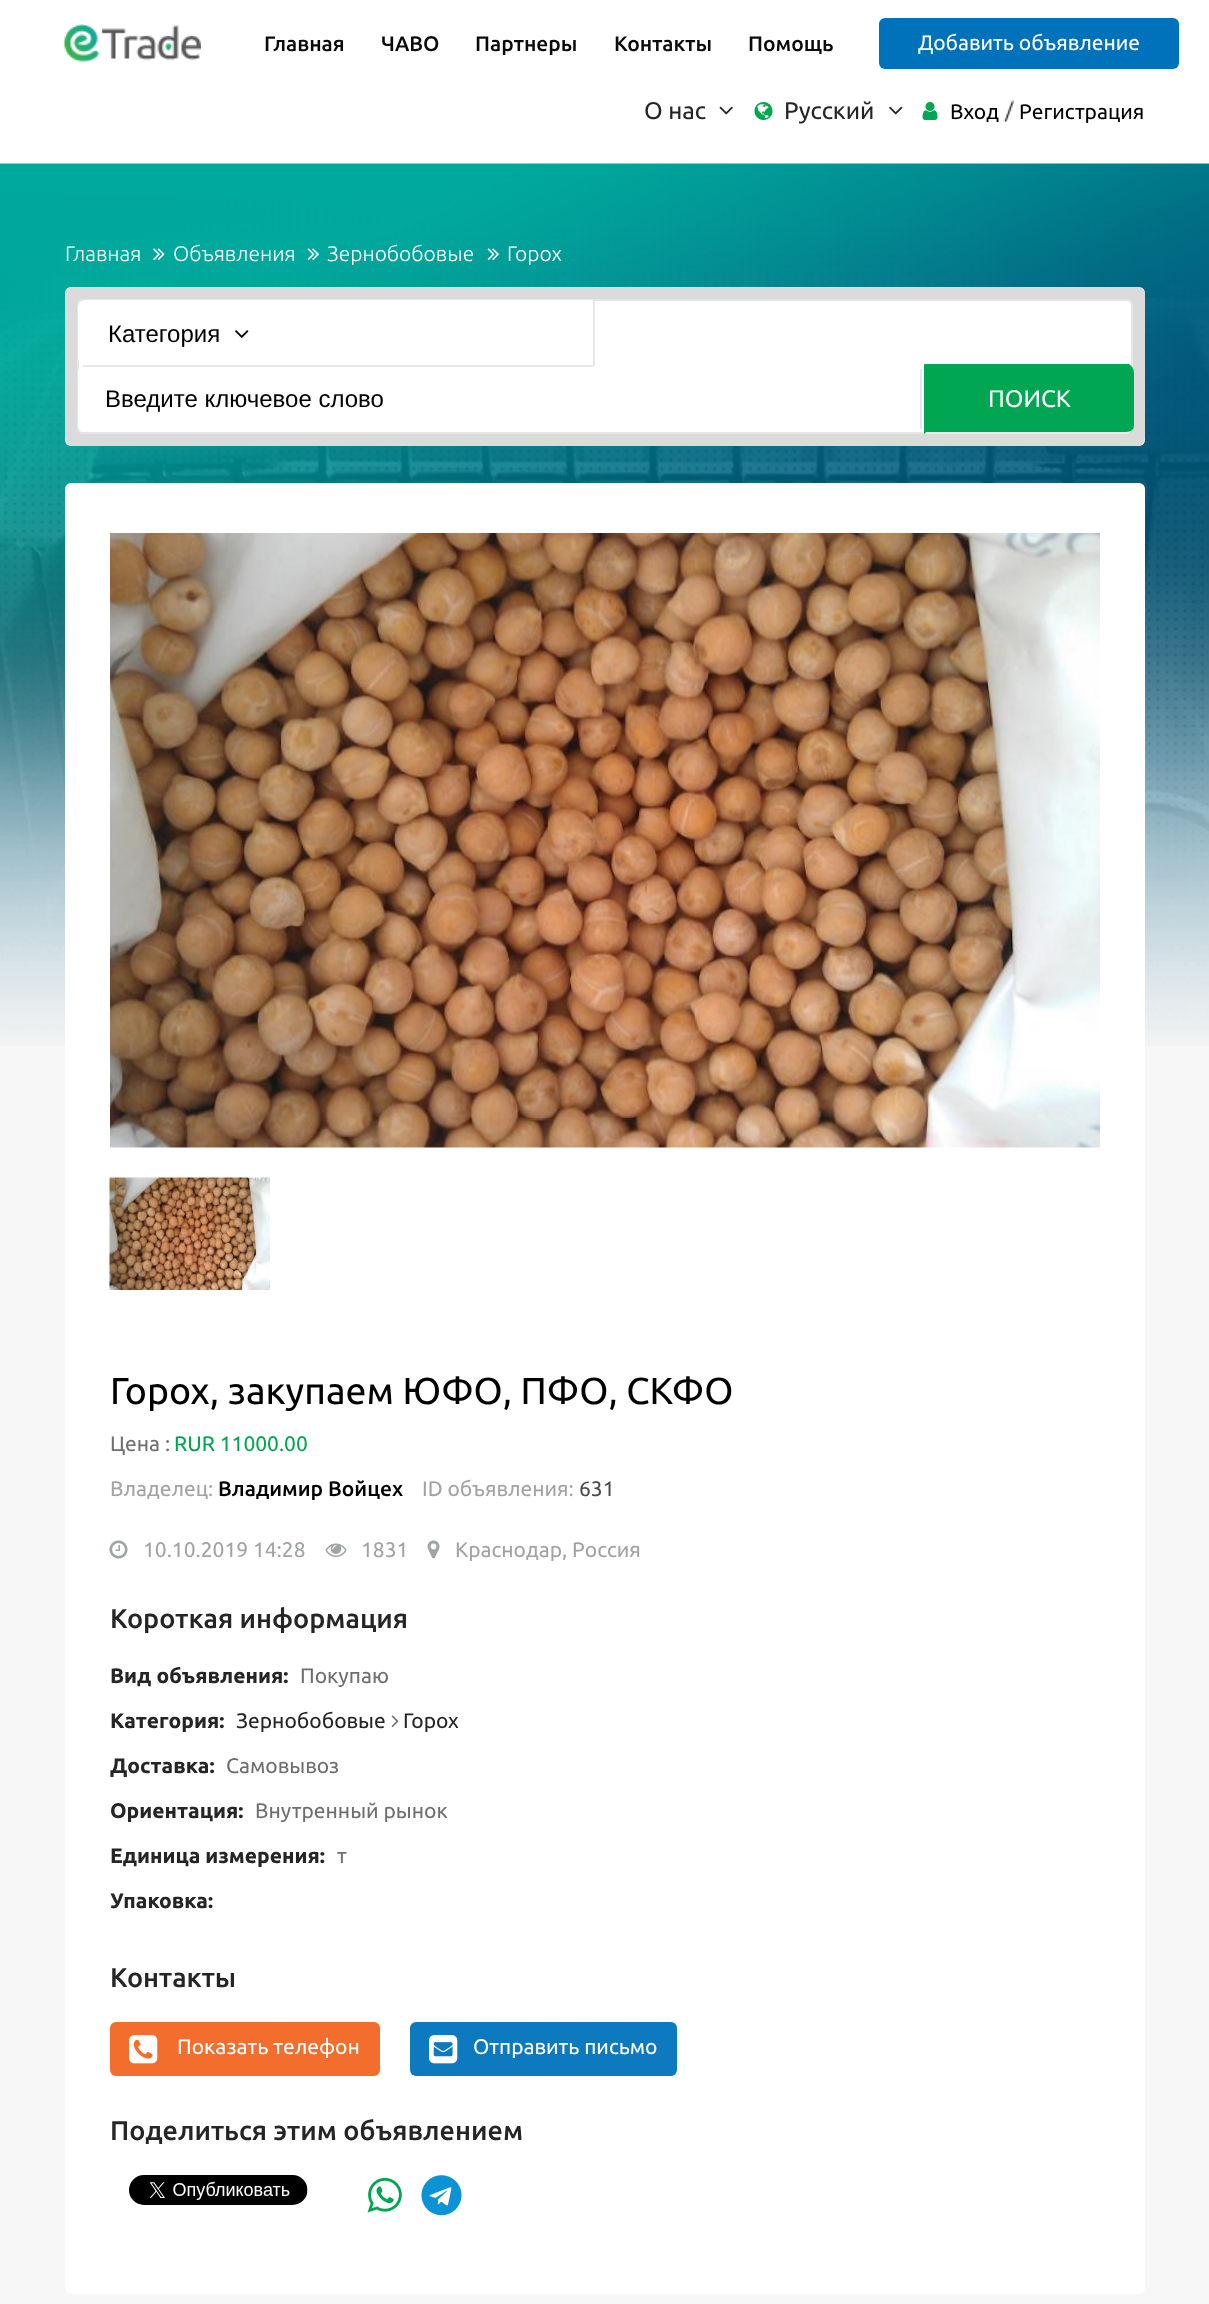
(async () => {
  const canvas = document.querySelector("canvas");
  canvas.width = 1209;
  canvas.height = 2304;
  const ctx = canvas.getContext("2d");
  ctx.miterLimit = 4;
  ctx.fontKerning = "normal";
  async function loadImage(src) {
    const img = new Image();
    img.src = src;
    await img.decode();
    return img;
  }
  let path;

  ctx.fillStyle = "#ffffff";
  ctx.fillRect(0, 0, 1209, 2304);
  ctx.drawImage(await loadImage("img/1.png"), 64, 24, 137, 38);
  ctx.fillStyle = "#0072bc";
  ctx.beginPath();
  ctx.roundRect(879, 18, 300, 51, 6);
  ctx.fill();
  ctx.drawImage(await loadImage("img/2.png"), 719, 106, 14, 9);
  ctx.drawImage(await loadImage("img/3.png"), 754, 102, 19, 18);
  ctx.drawImage(await loadImage("img/4.png"), 889, 106, 14, 9);
  ctx.drawImage(await loadImage("img/5.png"), 922, 102, 16, 18);
  ctx.drawImage(await loadImage("img/6.png"), 1003, 100, 11, 22);
  ctx.fillStyle = "#f7f7f7";
  ctx.fillRect(0, 491, 1209, 1813);
  ctx.drawImage(await loadImage("img/7.png"), 0, 163, 1209, 883);
  ctx.drawImage(await loadImage("img/8.png"), 153, 248, 12, 12);
  ctx.drawImage(await loadImage("img/9.png"), 307, 248, 12, 12);
  ctx.drawImage(await loadImage("img/10.png"), 487, 248, 12, 12);
  ctx.fillStyle = "#ffffff";
  ctx.beginPath();
  ctx.roundRect(65, 287, 1080, 159, 6);
  ctx.fill();
  ctx.fillStyle = "rgba(0, 0, 0, 0.14)";
  ctx.beginPath();
  ctx.roundRect(65, 287, 1080, 159, 8);
  ctx.fill();
  ctx.fillStyle = "#ffffff";
  ctx.beginPath();
  ctx.roundRect(78, 300, 1054, 133, 5);
  ctx.fill();
  ctx.strokeStyle = "#e6e6e6";
  ctx.lineWidth = 2;
  ctx.stroke();
  ctx.beginPath();
  ctx.roundRect(78, 300, 516, 66, [8, 0, 0, 8]);
  ctx.fill();
  ctx.fillStyle = "#e8e8e8";
  ctx.fillRect(593, 300, 2, 66);
  ctx.fillStyle = "#ffffff";
  ctx.beginPath();
  ctx.roundRect(78, 366, 843, 66, 6);
  ctx.fill();
  ctx.fillStyle = "#e8e8e8";
  ctx.fillRect(83, 365, 511, 2);
  ctx.drawImage(await loadImage("img/11.png"), 235, 330, 14, 8);
  ctx.fillRect(920, 369, 2, 60);
  ctx.fillStyle = "#00a651";
  ctx.beginPath();
  ctx.roundRect(924, 365, 210, 69, [0, 8, 8, 0]);
  ctx.fill();
  path = new Path2D("M926 366L924 364H1129C1132 366 1134 369 1134 372C1134 369 1131 366 1126 366Z");
  ctx.fill(path);
  ctx.fillStyle = "#e8e8e8";
  path = new Path2D("M1129 434H924L926 432H1126C1131 432 1134 429 1134 426C1134 429 1132 432 1129 434Z");
  ctx.fill(path);
  ctx.fillStyle = "#00a651";
  path = new Path2D("M924 434L926 432V366L924 364Z");
  ctx.fill(path);
  ctx.fillStyle = "#ffffff";
  ctx.beginPath();
  ctx.roundRect(65, 483, 1080, 1811, 6);
  ctx.fill();
  ctx.drawImage(await loadImage("img/12.png"), 110, 533, 990, 615);
  ctx.drawImage(await loadImage("img/13.png"), 109, 1177, 161, 113);
  ctx.drawImage(await loadImage("img/14.png"), 109, 1540, 19, 19);
  ctx.drawImage(await loadImage("img/15.png"), 325, 1543, 22, 14);
  ctx.drawImage(await loadImage("img/16.png"), 427, 1540, 13, 19);
  ctx.drawImage(await loadImage("img/17.png"), 391, 1715, 8, 12);
  ctx.fillStyle = "#f36d2d";
  ctx.beginPath();
  ctx.roundRect(110, 2022, 270, 54, 6);
  ctx.fill();
  ctx.drawImage(await loadImage("img/18.png"), 129, 2035, 29, 29);
  ctx.fillStyle = "#0d79bf";
  ctx.beginPath();
  ctx.roundRect(410, 2022, 267, 54, 6);
  ctx.fill();
  ctx.drawImage(await loadImage("img/19.png"), 429, 2035, 29, 29);
  ctx.drawImage(await loadImage("img/20.png"), 129, 2175, 179, 30);
  ctx.drawImage(await loadImage("img/21.png"), 367, 2177, 35, 36);
  ctx.drawImage(await loadImage("img/22.png"), 421, 2175, 41, 41);
  ctx.font = "500 21px Ubuntu";
  ctx.fillStyle = "#0a0a0a";
  for (const [text, x, y] of [
    ["Главная", 264, 51],
    ["ЧАВО", 381, 51],
    ["Партнеры", 475, 51],
    ["Контакты", 614, 51],
    ["Помощь", 748, 51],
  ]) {
    ctx.fillText(text, x, y);
  }
  ctx.font = "21px Ubuntu";
  ctx.fillStyle = "#ffffff";
  ctx.fillText("Добавить объявление", 918, 50);
  ctx.font = "24px Ubuntu";
  ctx.fillStyle = "#252525";
  ctx.fillText("О нас", 644, 119);
  ctx.fillText("Русский", 784, 119);
  ctx.font = "21px Ubuntu";
  ctx.fillStyle = "#000000";
  ctx.fillText("Вход", 950, 119);
  ctx.fillText("Регистрация", 1019, 119);
  ctx.font = "300 21px Ubuntu";
  ctx.fillStyle = "#ffffff";
  for (const [text, x, y] of [
    ["Главная", 65, 261],
    ["Объявления", 173, 261],
    ["Зернобобовые", 327, 261],
    ["Горох", 507, 261],
  ]) {
    ctx.fillText(text, x, y);
  }
  ctx.font = "24px Liberation Sans";
  ctx.fillStyle = "#000000";
  ctx.fillText("Категория", 108, 342);
  ctx.fillText("Введите ключевое слово", 105, 407);
  ctx.font = "24px Ubuntu";
  ctx.fillStyle = "#ffffff";
  ctx.fillText("ПОИСК", 988, 407);
  ctx.font = "37.5px Ubuntu";
  ctx.fillStyle = "#000000";
  ctx.fillText("Горох, закупаем ЮФО, ПФО, СКФО", 110, 1404);
  ctx.font = "21px Ubuntu";
  ctx.fillStyle = "#6f6f6f";
  ctx.fillText("Цена :", 110, 1451);
  ctx.fillStyle = "#00a651";
  ctx.fillText("RUR 11000.00", 174, 1451);
  ctx.fillStyle = "#9fa4a4";
  ctx.fillText("Владелец:", 110, 1496);
  ctx.font = "500 21px Ubuntu";
  ctx.fillStyle = "#000000";
  ctx.fillText("Владимир Войцех", 218, 1496);
  ctx.font = "21px Ubuntu";
  ctx.fillStyle = "#9fa4a4";
  ctx.fillText("ID объявления:", 422, 1496);
  ctx.fillStyle = "#4a4b4b";
  ctx.fillText("631", 579, 1496);
  ctx.fillStyle = "#9fa4a4";
  for (const [text, x, y] of [
    ["10.10.2019 14:28", 143, 1557],
    ["1831", 361, 1557],
    ["Краснодар, Россия", 455, 1557],
  ]) {
    ctx.fillText(text, x, y);
  }
  ctx.font = "500 27px Ubuntu";
  ctx.fillStyle = "#252525";
  ctx.fillText("Короткая информация", 110, 1628);
  ctx.font = "bold 21px Ubuntu";
  ctx.fillText("Вид объявления:", 110, 1683);
  ctx.font = "21px Ubuntu";
  ctx.fillStyle = "#6f6f6f";
  ctx.fillText("Покупаю", 300, 1683);
  ctx.font = "bold 21px Ubuntu";
  ctx.fillStyle = "#252525";
  ctx.fillText("Категория:", 110, 1728);
  ctx.font = "21px Ubuntu";
  ctx.fillText("Зернобобовые", 236, 1728);
  ctx.fillText("Горох", 403, 1728);
  ctx.font = "bold 21px Ubuntu";
  ctx.fillText("Доставка:", 110, 1773);
  ctx.font = "21px Ubuntu";
  ctx.fillStyle = "#6f6f6f";
  ctx.fillText("Самовывоз", 226, 1773);
  ctx.font = "bold 21px Ubuntu";
  ctx.fillStyle = "#252525";
  ctx.fillText("Ориентация:", 110, 1818);
  ctx.font = "21px Ubuntu";
  ctx.fillStyle = "#6f6f6f";
  ctx.fillText("Внутренный рынок", 255, 1818);
  ctx.font = "bold 21px Ubuntu";
  ctx.fillStyle = "#252525";
  ctx.fillText("Единица измерения:", 110, 1863);
  ctx.font = "21px Ubuntu";
  ctx.fillStyle = "#6f6f6f";
  ctx.fillText("т", 337, 1863);
  ctx.font = "bold 21px Ubuntu";
  ctx.fillStyle = "#252525";
  ctx.fillText("Упаковка:", 110, 1908);
  ctx.font = "500 27px Ubuntu";
  ctx.fillText("Контакты", 110, 1987);
  ctx.font = "21px Ubuntu";
  ctx.fillStyle = "#ffffff";
  ctx.fillText("Показать телефон", 177, 2054);
  ctx.fillText("Отправить письмо", 473, 2054);
  ctx.font = "500 27px Ubuntu";
  ctx.fillStyle = "#252525";
  ctx.fillText("Поделиться этим объявлением", 110, 2140);
})();
